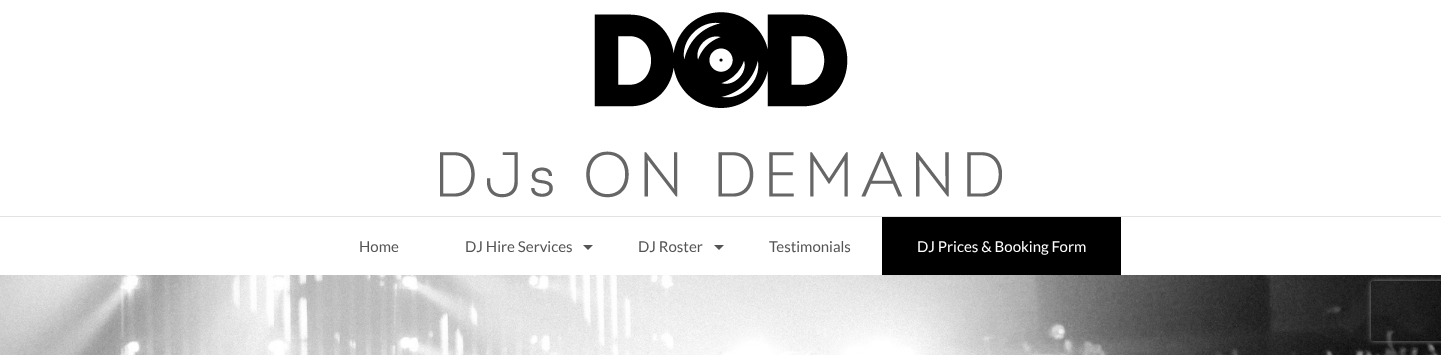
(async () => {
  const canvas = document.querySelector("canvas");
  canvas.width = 1441;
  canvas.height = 355;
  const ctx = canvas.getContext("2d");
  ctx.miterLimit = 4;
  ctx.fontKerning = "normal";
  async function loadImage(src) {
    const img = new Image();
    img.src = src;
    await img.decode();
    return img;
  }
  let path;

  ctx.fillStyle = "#ffffff";
  ctx.fillRect(0, 0, 1441, 355);
  ctx.fillStyle = "#e2e2e2";
  ctx.fillRect(0, 216, 1441, 1);
  ctx.drawImage(await loadImage("img/1.png"), 440, 12, 562, 186);
  ctx.fillStyle = "#545454";
  path = new Path2D("M583 245H593L588 250Z");
  ctx.fill(path);
  path = new Path2D("M714 245H724L719 250Z");
  ctx.fill(path);
  ctx.fillStyle = "#000000";
  ctx.fillRect(882, 217, 239, 58);
  ctx.drawImage(await loadImage("img/2.png"), 0, 275, 1441, 80);
  ctx.save();
  path = new Path2D("M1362 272H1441V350H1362ZM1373 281H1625C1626 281 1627 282 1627 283V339C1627 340 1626 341 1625 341H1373C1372 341 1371 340 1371 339V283C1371 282 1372 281 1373 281Z");
  ctx.clip(path, "evenodd");
  ctx.fillStyle = "#808080";
  ctx.filter = "blur(2.5px)";
  ctx.beginPath();
  ctx.roundRect(1371, 281, 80, 60, 2);
  ctx.fill();
  ctx.filter = "none";
  ctx.restore();
  ctx.font = "15px Lato";
  ctx.fillStyle = "#545454";
  for (const [text, x, y] of [
    ["Home", 359, 252],
    ["DJ Hire Services", 465, 252],
    ["DJ Roster", 638, 252],
    ["Testimonials", 769, 252],
  ]) {
    ctx.fillText(text, x, y);
  }
  ctx.fillStyle = "#ffffff";
  ctx.fillText("DJ Prices & Booking Form", 917, 252);
})();
